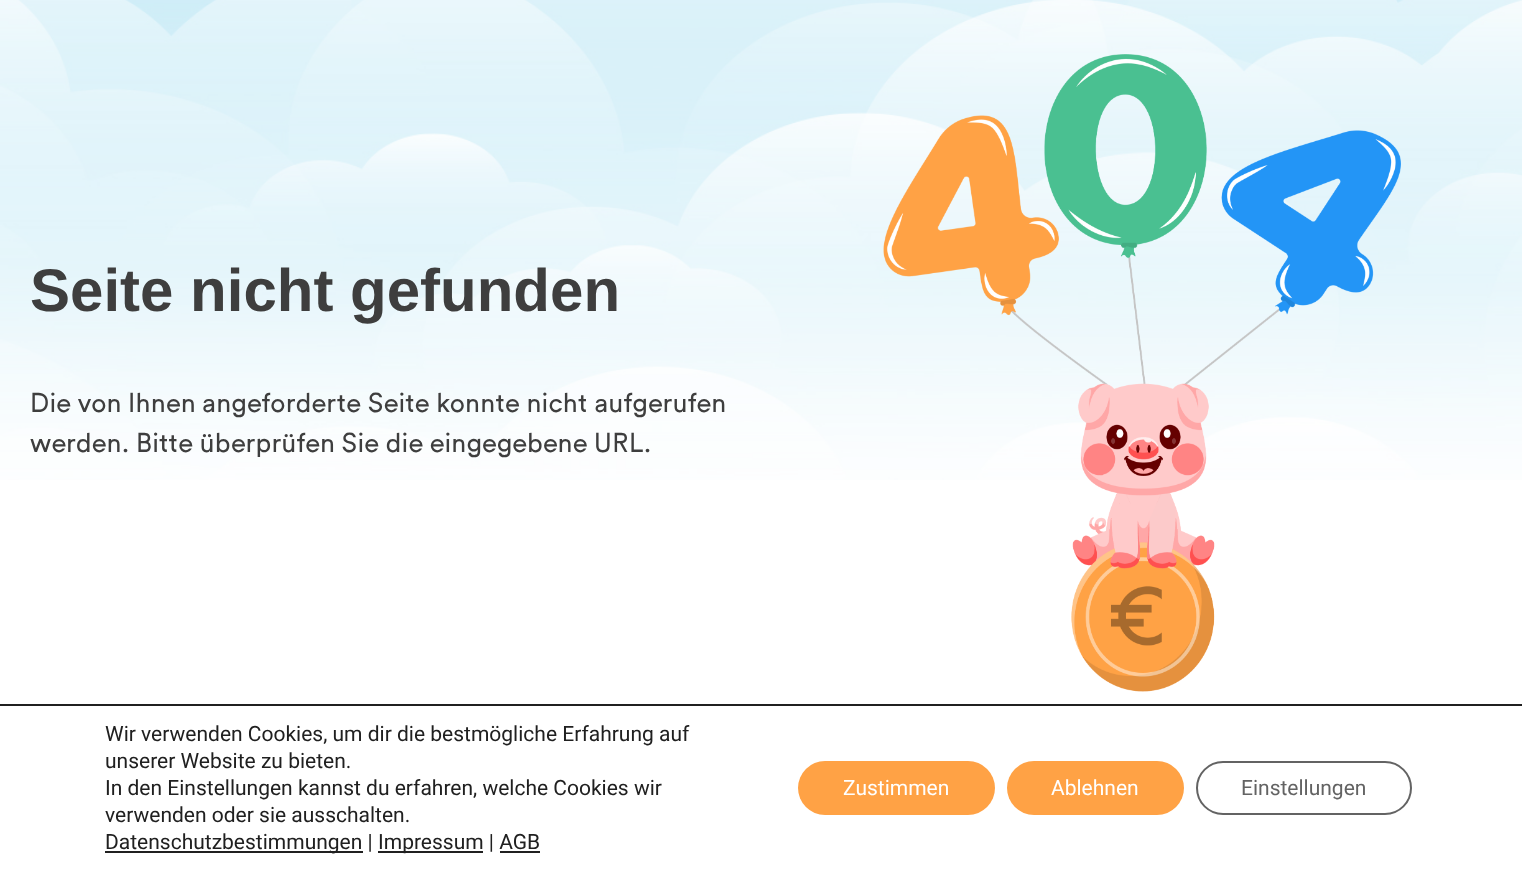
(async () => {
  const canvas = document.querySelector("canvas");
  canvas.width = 1522;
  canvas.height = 869;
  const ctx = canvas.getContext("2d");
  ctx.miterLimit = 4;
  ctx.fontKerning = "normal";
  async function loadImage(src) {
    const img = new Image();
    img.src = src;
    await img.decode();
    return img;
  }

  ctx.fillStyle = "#ffffff";
  ctx.fillRect(0, 0, 1522, 869);
  ctx.drawImage(await loadImage("img/1.png"), 0, 0, 1522, 480);
  ctx.drawImage(await loadImage("img/2.png"), 883, 54, 518, 638);
  for (const [x, y, w, h, color] of [
    [0, 704, 1522, 2, "#202020"],
    [105, 851, 258, 2, "#202020"],
    [378, 851, 105, 2, "#202020"],
    [500, 851, 40, 2, "#202020"],
  ]) {
    ctx.fillStyle = color;
    ctx.fillRect(x, y, w, h);
  }
  ctx.fillStyle = "#ffa245";
  ctx.beginPath();
  ctx.roundRect(798, 761, 197, 54, 27);
  ctx.fill();
  ctx.beginPath();
  ctx.roundRect(1007, 761, 177, 54, 27);
  ctx.fill();
  ctx.beginPath();
  ctx.roundRect(1197, 762, 214, 52, 26);
  ctx.strokeStyle = "#636363";
  ctx.lineWidth = 2;
  ctx.stroke();
  ctx.font = "bold 60px Liberation Sans";
  ctx.fillStyle = "#3e3e3e";
  ctx.fillText("Seite nicht gefunden", 30, 311);
  ctx.font = "27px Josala";
  ctx.fillText("Die von Ihnen angeforderte Seite konnte nicht aufgerufen", 30, 412);
  ctx.fillText("werden. Bitte überprüfen Sie die eingegebene URL.", 30, 452);
  ctx.font = "21px Roboto";
  ctx.fillStyle = "#202020";
  for (const [text, x, y] of [
    ["Wir verwenden Cookies, um dir die bestmögliche Erfahrung auf", 105, 741],
    ["unserer Website zu bieten.", 105, 768],
    ["In den Einstellungen kannst du erfahren, welche Cookies wir", 105, 795],
    ["verwenden oder sie ausschalten.", 105, 822],
    ["Datenschutzbestimmungen |", 105, 849],
    ["Impressum | AGB", 378, 849],
  ]) {
    ctx.fillText(text, x, y);
  }
  ctx.fillStyle = "#ffffff";
  ctx.fillText("Zustimmen", 843, 795);
  ctx.fillText("Ablehnen", 1051, 795);
  ctx.fillStyle = "#636363";
  ctx.fillText("Einstellungen", 1241, 795);
})();
